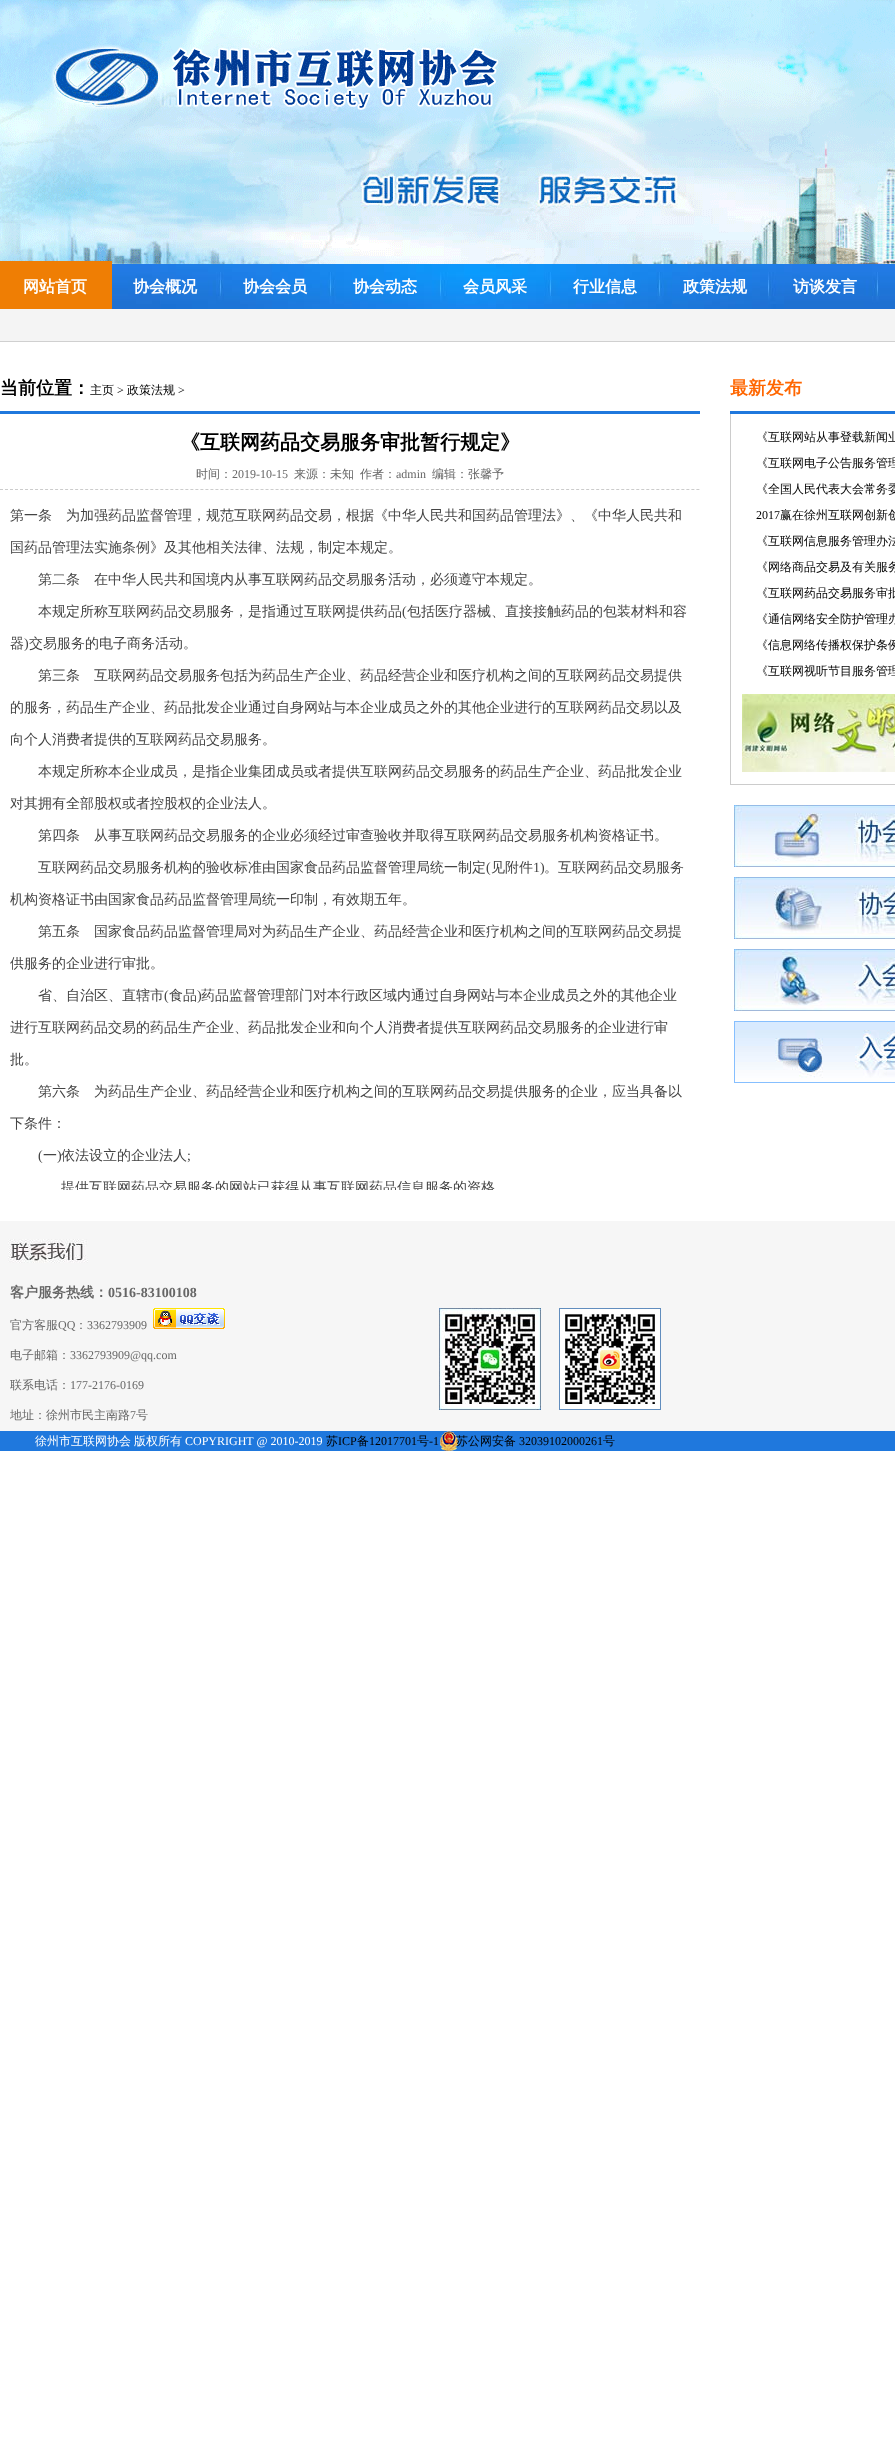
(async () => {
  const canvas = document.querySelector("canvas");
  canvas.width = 895;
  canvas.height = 2440;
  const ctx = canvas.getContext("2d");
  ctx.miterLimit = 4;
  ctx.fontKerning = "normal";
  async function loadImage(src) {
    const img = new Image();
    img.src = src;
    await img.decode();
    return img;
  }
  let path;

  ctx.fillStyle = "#ffffff";
  ctx.fillRect(0, 0, 895, 2440);
  ctx.drawImage(await loadImage("img/1.png"), 0, 0, 895, 264);
  ctx.drawImage(await loadImage("img/2.png"), 112, 264, 783, 45);
  for (const [x, y, w, h, color] of [
    [0, 261, 112, 48, "#ef7e04"],
    [0, 309, 895, 32, "#f4f4f4"],
    [0, 341, 895, 1, "#d0d0d0"],
    [0, 411, 700, 3, "#1f78dd"],
  ]) {
    ctx.fillStyle = color;
    ctx.fillRect(x, y, w, h);
  }
  path = new Path2D("M0 489.5H700");
  ctx.strokeStyle = "#cccccc";
  ctx.setLineDash([3, 2.01]);
  ctx.stroke(path);
  for (const [x, y, w, h, color] of [
    [730, 411, 165, 3, "#1f78dd"],
    [730, 784, 165, 1, "#cccccc"],
    [730, 414, 1, 371, "#cccccc"],
  ]) {
    ctx.fillStyle = color;
    ctx.fillRect(x, y, w, h);
  }
  ctx.drawImage(await loadImage("img/3.png"), 742, 694, 153, 78);
  ctx.drawImage(await loadImage("img/4.png"), 734, 805, 161, 62);
  ctx.drawImage(await loadImage("img/5.png"), 734, 877, 161, 62);
  ctx.drawImage(await loadImage("img/6.png"), 734, 949, 161, 62);
  ctx.drawImage(await loadImage("img/7.png"), 734, 1021, 161, 62);
  ctx.fillStyle = "#f6f6f6";
  ctx.fillRect(0, 1221, 895, 210);
  ctx.drawImage(await loadImage("img/8.png"), 8, 1239, 80, 24);
  ctx.drawImage(await loadImage("img/9.png"), 153, 1308, 72, 21);
  ctx.drawImage(await loadImage("img/10.png"), 439, 1308, 102, 102);
  ctx.drawImage(await loadImage("img/11.png"), 559, 1308, 102, 102);
  ctx.fillStyle = "#1f78dd";
  ctx.fillRect(0, 1431, 895, 20);
  ctx.drawImage(await loadImage("img/12.png"), 440, 1431, 18, 20);
  ctx.font = "bold 16px WenQuanYi Zen Hei";
  ctx.fillStyle = "#ffffff";
  for (const [text, x, y] of [
    ["网站首页", 23, 292],
    ["协会概况", 133, 292],
    ["协会会员", 243, 292],
    ["协会动态", 353, 292],
    ["会员风采", 463, 292],
    ["行业信息", 573, 292],
    ["政策法规", 683, 292],
    ["访谈发言", 793, 292],
  ]) {
    ctx.fillText(text, x, y);
  }
  ctx.font = "bold 18px WenQuanYi Zen Hei";
  ctx.fillStyle = "#000000";
  ctx.fillText("当前位置：", 0, 394);
  ctx.font = "500 12px WenQuanYi Zen Hei";
  ctx.fillText("主页", 90, 394);
  ctx.font = "12px Liberation Serif";
  ctx.fillText(">", 117, 394);
  ctx.font = "500 12px WenQuanYi Zen Hei";
  ctx.fillText("政策法规", 127, 394);
  ctx.font = "12px Liberation Serif";
  ctx.fillText(">", 178, 394);
  ctx.font = "bold 20px WenQuanYi Zen Hei";
  ctx.fillText("《互联网药品交易服务审批暂行规定》", 180, 449);
  ctx.font = "500 12px WenQuanYi Zen Hei";
  ctx.fillStyle = "#666666";
  ctx.fillText("时间：", 196, 478);
  ctx.font = "12px Liberation Serif";
  ctx.fillText("2019-10-15", 232, 478);
  ctx.font = "500 12px WenQuanYi Zen Hei";
  ctx.fillText("来源：未知", 294, 478);
  ctx.fillText("作者：", 360, 478);
  ctx.font = "12px Liberation Serif";
  ctx.fillText("admin", 396, 478);
  ctx.font = "500 12px WenQuanYi Zen Hei";
  ctx.fillText("编辑：张馨予", 432, 478);
  ctx.font = "500 14px WenQuanYi Zen Hei";
  ctx.fillStyle = "#444444";
  for (const [text, x, y] of [
    ["第一条　为加强药品监督管理，规范互联网药品交易，根据《中华人民共和国药品管理法》、《中华人民共和", 10, 520],
    ["国药品管理法实施条例》及其他相关法律、法规，制定本规定。", 10, 552],
    ["第二条　在中华人民共和国境内从事互联网药品交易服务活动，必须遵守本规定。", 38, 584],
    ["本规定所称互联网药品交易服务，是指通过互联网提供药品", 38, 616],
  ]) {
    ctx.fillText(text, x, y);
  }
  ctx.font = "14px Liberation Serif";
  ctx.fillText("(", 402, 616);
  ctx.font = "500 14px WenQuanYi Zen Hei";
  ctx.fillText("包括医疗器械、直接接触药品的包装材料和容", 407, 616);
  ctx.fillText("器", 10, 648);
  ctx.font = "14px Liberation Serif";
  ctx.fillText(")", 24, 648);
  ctx.font = "500 14px WenQuanYi Zen Hei";
  for (const [text, x, y] of [
    ["交易服务的电子商务活动。", 29, 648],
    ["第三条　互联网药品交易服务包括为药品生产企业、药品经营企业和医疗机构之间的互联网药品交易提供", 38, 680],
    ["的服务，药品生产企业、药品批发企业通过自身网站与本企业成员之外的其他企业进行的互联网药品交易以及", 10, 712],
    ["向个人消费者提供的互联网药品交易服务。", 10, 744],
    ["本规定所称本企业成员，是指企业集团成员或者提供互联网药品交易服务的药品生产企业、药品批发企业", 38, 776],
    ["对其拥有全部股权或者控股权的企业法人。", 10, 808],
    ["第四条　从事互联网药品交易服务的企业必须经过审查验收并取得互联网药品交易服务机构资格证书。", 38, 840],
    ["互联网药品交易服务机构的验收标准由国家食品药品监督管理局统一制定", 38, 872],
  ]) {
    ctx.fillText(text, x, y);
  }
  ctx.font = "14px Liberation Serif";
  ctx.fillText("(", 486, 872);
  ctx.font = "500 14px WenQuanYi Zen Hei";
  ctx.fillText("见附件", 491, 872);
  ctx.font = "14px Liberation Serif";
  ctx.fillText("1)", 533, 872);
  ctx.font = "500 14px WenQuanYi Zen Hei";
  for (const [text, x, y] of [
    ["。互联网药品交易服务", 544, 872],
    ["机构资格证书由国家食品药品监督管理局统一印制，有效期五年。", 10, 904],
    ["第五条　国家食品药品监督管理局对为药品生产企业、药品经营企业和医疗机构之间的互联网药品交易提", 38, 936],
    ["供服务的企业进行审批。", 10, 968],
    ["省、自治区、直辖市", 38, 1000],
  ]) {
    ctx.fillText(text, x, y);
  }
  ctx.font = "14px Liberation Serif";
  ctx.fillText("(", 164, 1000);
  ctx.font = "500 14px WenQuanYi Zen Hei";
  ctx.fillText("食品", 169, 1000);
  ctx.font = "14px Liberation Serif";
  ctx.fillText(")", 197, 1000);
  ctx.font = "500 14px WenQuanYi Zen Hei";
  for (const [text, x, y] of [
    ["药品监督管理部门对本行政区域内通过自身网站与本企业成员之外的其他企业", 201, 1000],
    ["进行互联网药品交易的药品生产企业、药品批发企业和向个人消费者提供互联网药品交易服务的企业进行审", 10, 1032],
    ["批。", 10, 1064],
    ["第六条　为药品生产企业、药品经营企业和医疗机构之间的互联网药品交易提供服务的企业，应当具备以", 38, 1096],
    ["下条件：", 10, 1128],
  ]) {
    ctx.fillText(text, x, y);
  }
  ctx.font = "14px Liberation Serif";
  ctx.fillText("(", 38, 1160);
  ctx.font = "500 14px WenQuanYi Zen Hei";
  ctx.fillText("一", 43, 1160);
  ctx.font = "14px Liberation Serif";
  ctx.fillText(")", 57, 1160);
  ctx.font = "500 14px WenQuanYi Zen Hei";
  ctx.fillText("依法设立的企业法人", 61, 1160);
  ctx.font = "14px Liberation Serif";
  ctx.fillText(";", 187, 1160);
  ctx.save();
  ctx.beginPath();
  ctx.rect(0, 490, 700, 700);
  ctx.clip();
  ctx.font = "500 14px WenQuanYi Zen Hei";
  ctx.fillText("提供互联网药品交易服务的网站已获得从事互联网药品信息服务的资格", 61, 1192);
  ctx.restore();
  ctx.font = "bold 18px WenQuanYi Zen Hei";
  ctx.fillStyle = "#ff6600";
  ctx.fillText("最新发布", 730, 394);
  ctx.font = "500 12px WenQuanYi Zen Hei";
  ctx.fillStyle = "#000000";
  for (const [text, x, y] of [
    ["《互联网站从事登载新闻业", 756, 441],
    ["《互联网电子公告服务管理", 756, 467],
    ["《全国人民代表大会常务委", 756, 493],
  ]) {
    ctx.fillText(text, x, y);
  }
  ctx.font = "12px Liberation Serif";
  ctx.fillText("2017", 756, 519);
  ctx.font = "500 12px WenQuanYi Zen Hei";
  for (const [text, x, y] of [
    ["赢在徐州互联网创新创", 780, 519],
    ["《互联网信息服务管理办法", 756, 545],
    ["《网络商品交易及有关服务", 756, 571],
    ["《互联网药品交易服务审批", 756, 597],
    ["《通信网络安全防护管理办", 756, 623],
    ["《信息网络传播权保护条例", 756, 649],
    ["《互联网视听节目服务管理", 756, 675],
  ]) {
    ctx.fillText(text, x, y);
  }
  ctx.font = "bold 14px WenQuanYi Zen Hei";
  ctx.fillStyle = "#666666";
  ctx.fillText("客户服务热线：", 10, 1297);
  ctx.font = "bold 14px Liberation Serif";
  ctx.fillText("0516-83100108", 108, 1297);
  ctx.font = "500 12px WenQuanYi Zen Hei";
  ctx.fillText("官方客服", 10, 1329);
  ctx.font = "12px Liberation Serif";
  ctx.fillText("QQ", 58, 1329);
  ctx.font = "500 12px WenQuanYi Zen Hei";
  ctx.fillText("：", 75, 1329);
  ctx.font = "12px Liberation Serif";
  ctx.fillText("3362793909", 87, 1329);
  ctx.font = "500 12px WenQuanYi Zen Hei";
  ctx.fillText("电子邮箱：", 10, 1359);
  ctx.font = "12px Liberation Serif";
  ctx.fillText("3362793909@qq.com", 70, 1359);
  ctx.font = "500 12px WenQuanYi Zen Hei";
  ctx.fillText("联系电话：", 10, 1389);
  ctx.font = "12px Liberation Serif";
  ctx.fillText("177-2176-0169", 70, 1389);
  ctx.font = "500 12px WenQuanYi Zen Hei";
  ctx.fillText("地址：徐州市民主南路", 10, 1419);
  ctx.font = "12px Liberation Serif";
  ctx.fillText("7", 130, 1419);
  ctx.font = "500 12px WenQuanYi Zen Hei";
  ctx.fillText("号", 136, 1419);
  ctx.fillStyle = "#ffffff";
  ctx.fillText("徐州市互联网协会", 35, 1445);
  ctx.fillText("版权所有", 134, 1445);
  ctx.font = "12px Liberation Serif";
  ctx.fillText("COPYRIGHT @ 2010-2019", 185, 1445);
  ctx.font = "500 12px WenQuanYi Zen Hei";
  ctx.fillStyle = "#000000";
  ctx.fillText("苏", 326, 1445);
  ctx.font = "12px Liberation Serif";
  ctx.fillText("ICP", 338, 1445);
  ctx.font = "500 12px WenQuanYi Zen Hei";
  ctx.fillText("备", 357, 1445);
  ctx.font = "12px Liberation Serif";
  ctx.fillText("12017701", 369, 1445);
  ctx.font = "500 12px WenQuanYi Zen Hei";
  ctx.fillText("号", 417, 1445);
  ctx.font = "12px Liberation Serif";
  ctx.fillText("-1", 429, 1445);
  ctx.font = "500 12px WenQuanYi Zen Hei";
  ctx.fillText("苏公网安备", 456, 1445);
  ctx.font = "12px Liberation Serif";
  ctx.fillText("32039102000261", 519, 1445);
  ctx.font = "500 12px WenQuanYi Zen Hei";
  ctx.fillText("号", 603, 1445);
})();
